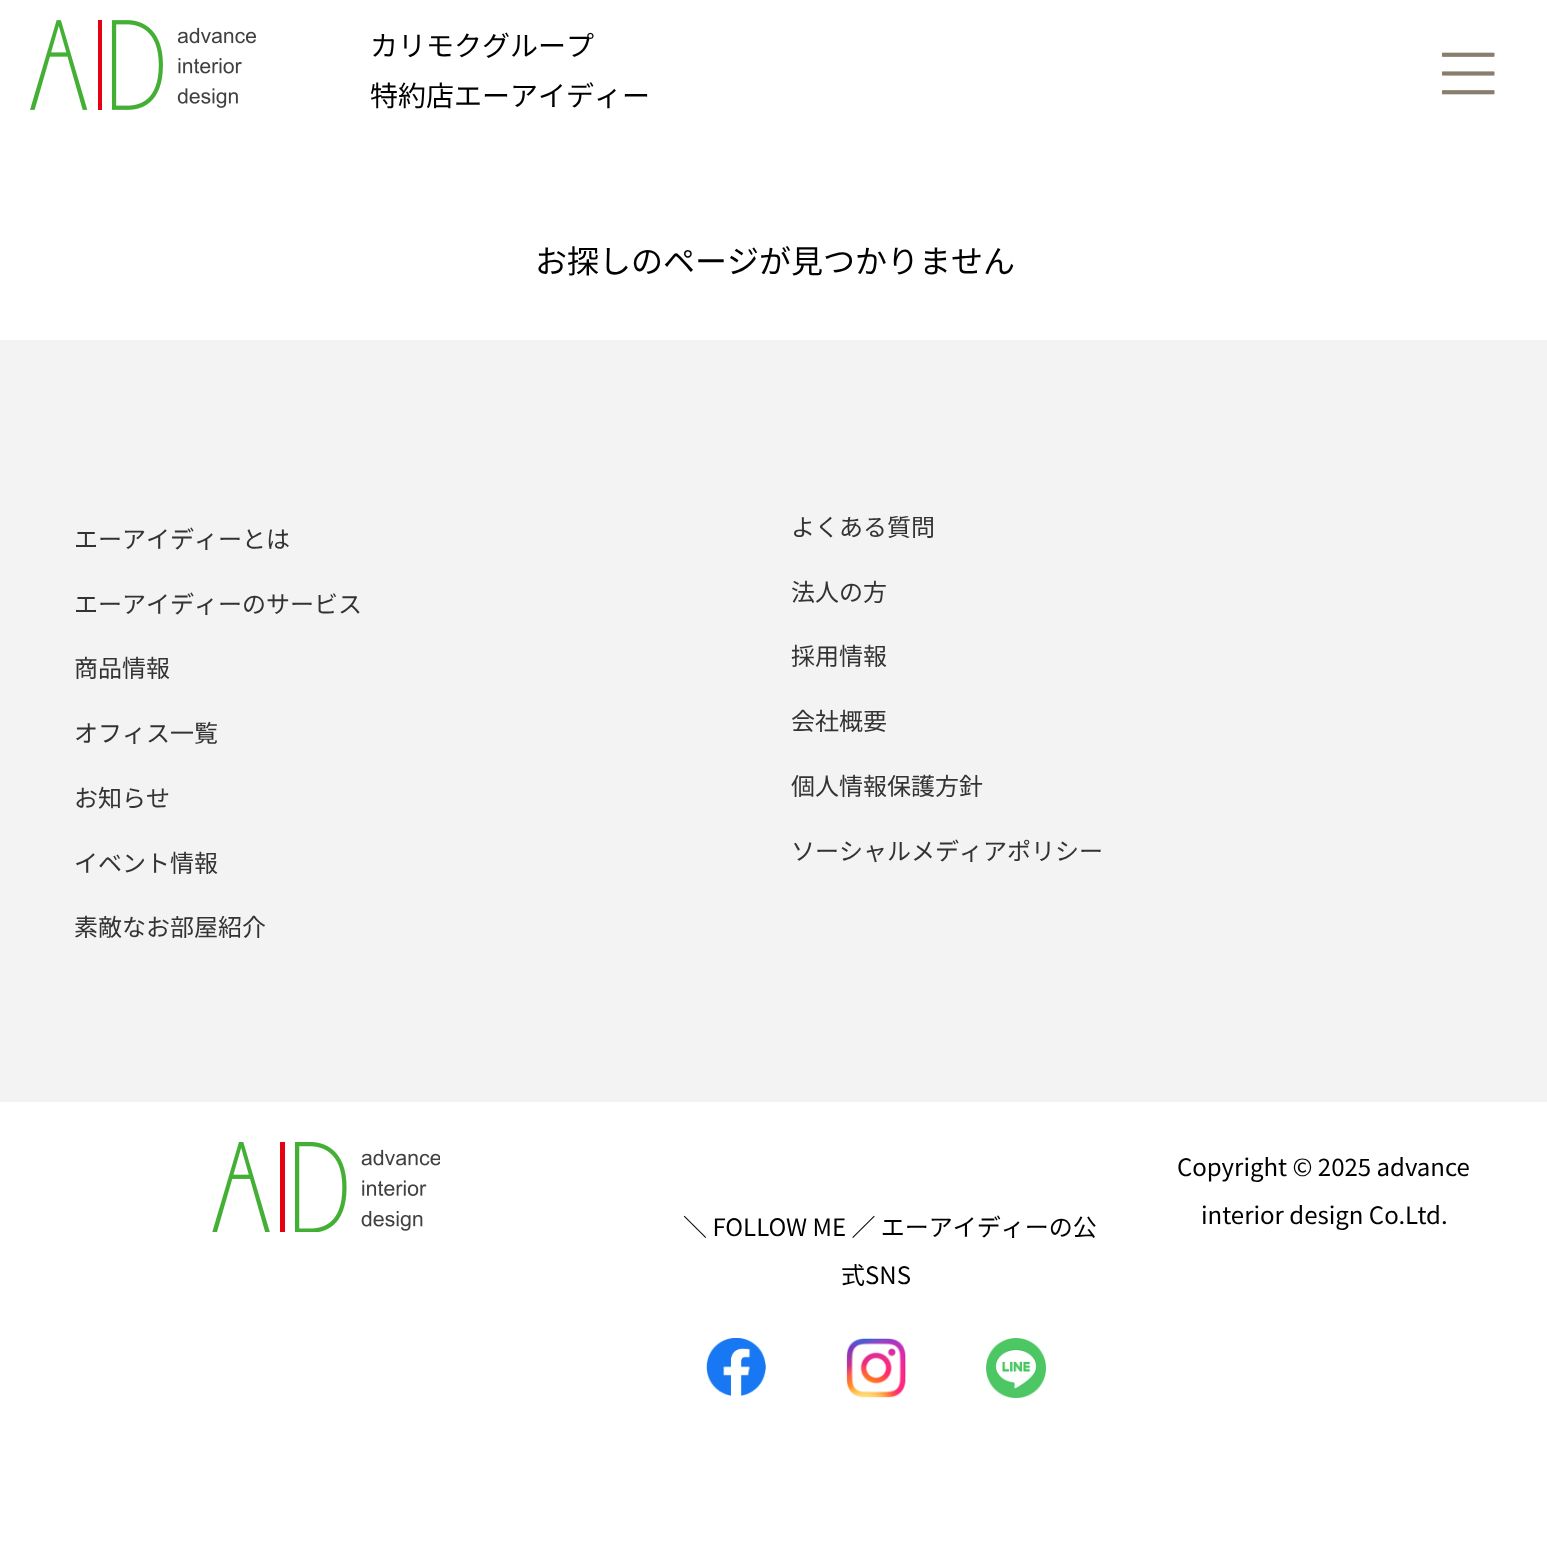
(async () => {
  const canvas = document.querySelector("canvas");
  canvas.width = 1547;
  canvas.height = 1560;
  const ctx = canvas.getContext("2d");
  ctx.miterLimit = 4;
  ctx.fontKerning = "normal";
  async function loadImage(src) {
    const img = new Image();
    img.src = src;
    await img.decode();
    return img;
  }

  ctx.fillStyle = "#ffffff";
  ctx.fillRect(0, 0, 1547, 1560);
  ctx.drawImage(await loadImage("img/1.png"), 30, 20, 226, 90);
  ctx.drawImage(await loadImage("img/2.png"), 1442, 52, 53, 43);
  ctx.fillStyle = "#f3f3f3";
  ctx.fillRect(0, 340, 1547, 762);
  ctx.drawImage(await loadImage("img/3.png"), 212, 1142, 228, 90);
  ctx.drawImage(await loadImage("img/4.png"), 706, 1338, 60, 58);
  ctx.drawImage(await loadImage("img/5.png"), 846, 1338, 60, 60);
  ctx.drawImage(await loadImage("img/6.png"), 986, 1338, 60, 60);
  ctx.font = "28px Noto Sans JP";
  ctx.fillStyle = "#000000";
  ctx.fillText("カリモクグループ", 370, 56);
  ctx.fillText("特約店エーアイディー", 370, 106);
  ctx.font = "32px Noto Sans JP";
  ctx.fillText("お探しのページが見つかりません", 535, 273);
  ctx.font = "24px Noto Sans JP";
  ctx.fillStyle = "#333333";
  for (const [text, x, y] of [
    ["エーアイディーとは", 74, 548],
    ["よくある質問", 791, 536],
    ["エーアイディーのサービス", 74, 613],
    ["法人の方", 791, 601],
    ["商品情報", 74, 677],
    ["採用情報", 791, 665],
    ["オフィス一覧", 74, 742],
    ["会社概要", 791, 730],
    ["お知らせ", 74, 807],
    ["個人情報保護方針", 791, 795],
    ["イベント情報", 74, 872],
    ["ソーシャルメディアポリシー", 791, 860],
    ["素敵なお部屋紹介", 74, 936],
  ]) {
    ctx.fillText(text, x, y);
  }
  ctx.fillStyle = "#000000";
  for (const [text, x, y] of [
    ["Copyright © 2025 advance", 1177, 1176],
    ["interior design Co.Ltd.", 1201, 1224],
    ["＼ FOLLOW ME ／ エーアイディーの公", 683, 1236],
    ["式SNS", 841, 1284],
  ]) {
    ctx.fillText(text, x, y);
  }
})();
